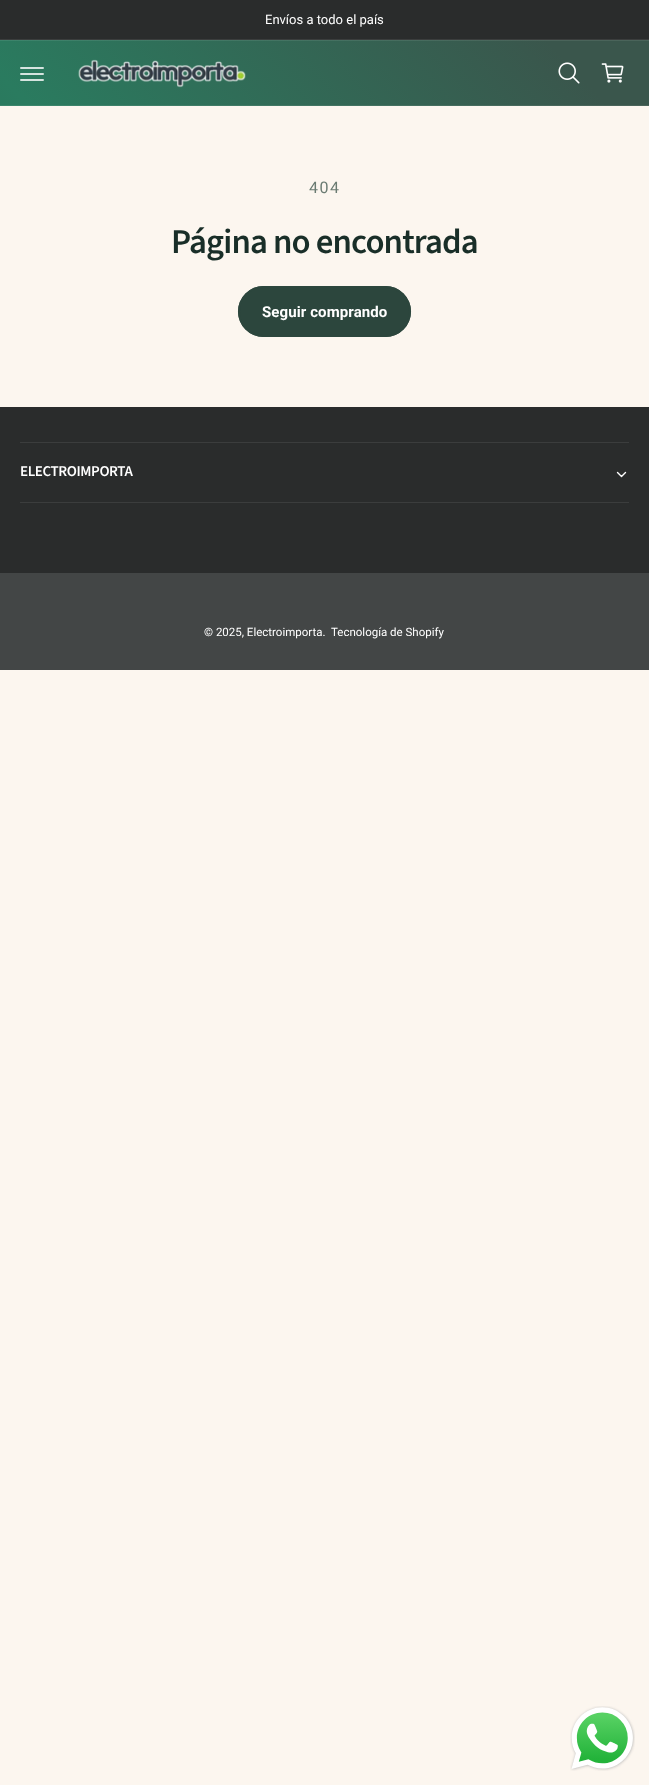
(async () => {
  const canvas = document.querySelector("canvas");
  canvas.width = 649;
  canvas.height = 1785;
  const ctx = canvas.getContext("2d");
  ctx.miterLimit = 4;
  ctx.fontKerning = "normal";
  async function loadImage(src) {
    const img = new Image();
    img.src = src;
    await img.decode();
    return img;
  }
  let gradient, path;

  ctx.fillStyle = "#fcf6ef";
  ctx.fillRect(0, 0, 649, 1785);
  ctx.fillStyle = "#2a2c2c";
  ctx.fillRect(0, 0, 649, 39);
  ctx.fillStyle = "#3b3d3d";
  ctx.fillRect(0, 39, 649, 1);
  gradient = ctx.createLinearGradient(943, 316, -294, 1469);
  gradient.addColorStop(0.06, "#3a564c");
  gradient.addColorStop(0.31, "#2a7b5f");
  gradient.addColorStop(0.98, "#2b3230");
  ctx.fillStyle = gradient;
  ctx.fillRect(0, 41, 649, 64);
  gradient = ctx.createLinearGradient(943, 316, -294, 1469);
  gradient.addColorStop(0.06, "#4a645a");
  gradient.addColorStop(0.31, "#3b866c");
  gradient.addColorStop(0.98, "#3c4241");
  ctx.fillStyle = gradient;
  ctx.fillRect(0, 105, 649, 1);
  ctx.fillRect(0, 40, 649, 1);
  path = new Path2D("M21 68H43M21 74H43M21 80H43");
  ctx.strokeStyle = "#d5e4df";
  ctx.lineWidth = 2;
  ctx.lineCap = "round";
  ctx.stroke(path);
  ctx.drawImage(await loadImage("img/1.png"), 78, 59, 168, 29);
  ctx.drawImage(await loadImage("img/2.png"), 558, 62, 22, 22);
  ctx.drawImage(await loadImage("img/3.png"), 601, 63, 23, 20);
  ctx.fillStyle = "#2c463d";
  ctx.beginPath();
  ctx.roundRect(238, 286, 173, 51, 25.5);
  ctx.fill();
  ctx.beginPath();
  ctx.roundRect(239, 287, 171, 49, 24.5);
  ctx.strokeStyle = "#2c463d";
  ctx.stroke();
  for (const [x, y, w, h, color] of [
    [0, 407, 649, 166, "#2a2c2c"],
    [20, 442, 609, 1, "#3b3d3d"],
    [20, 502, 609, 1, "#3b3d3d"],
  ]) {
    ctx.fillStyle = color;
    ctx.fillRect(x, y, w, h);
  }
  path = new Path2D("M617.5 472.5L621.5 476.5L625.5 472.5");
  ctx.strokeStyle = "#ffffff";
  ctx.lineWidth = 1.4;
  ctx.lineJoin = "round";
  ctx.stroke(path);
  ctx.fillStyle = "#434646";
  ctx.fillRect(0, 573, 649, 97);
  ctx.drawImage(await loadImage("img/4.png"), 570, 1706, 65, 65);
  ctx.font = "13px Roboto";
  ctx.fillStyle = "#ffffff";
  ctx.fillText("Envíos a todo el país", 265, 24);
  ctx.letterSpacing = "1.5px";
  ctx.font = "16px Roboto";
  ctx.fillStyle = "#6a7b72";
  ctx.fillText("404", 309, 193);
  ctx.letterSpacing = "-0.9px";
  ctx.font = "600 34.75px Source Sans Pro";
  ctx.fillStyle = "#192e28";
  ctx.fillText("Página no encontrada", 171, 253);
  ctx.letterSpacing = "0.1px";
  ctx.font = "bold 15px Roboto";
  ctx.fillStyle = "#ffffff";
  ctx.fillText("Seguir comprando", 262, 317);
  ctx.letterSpacing = "-0.4px";
  ctx.font = "600 15px Source Sans Pro";
  ctx.fillText("ELECTROIMPORTA", 20, 476);
  ctx.letterSpacing = "0px";
  ctx.font = "11.5px Roboto";
  ctx.fillText("© 2025, Electroimporta.", 204, 636);
  ctx.fillText("Tecnología de Shopify", 331, 636);
})();
